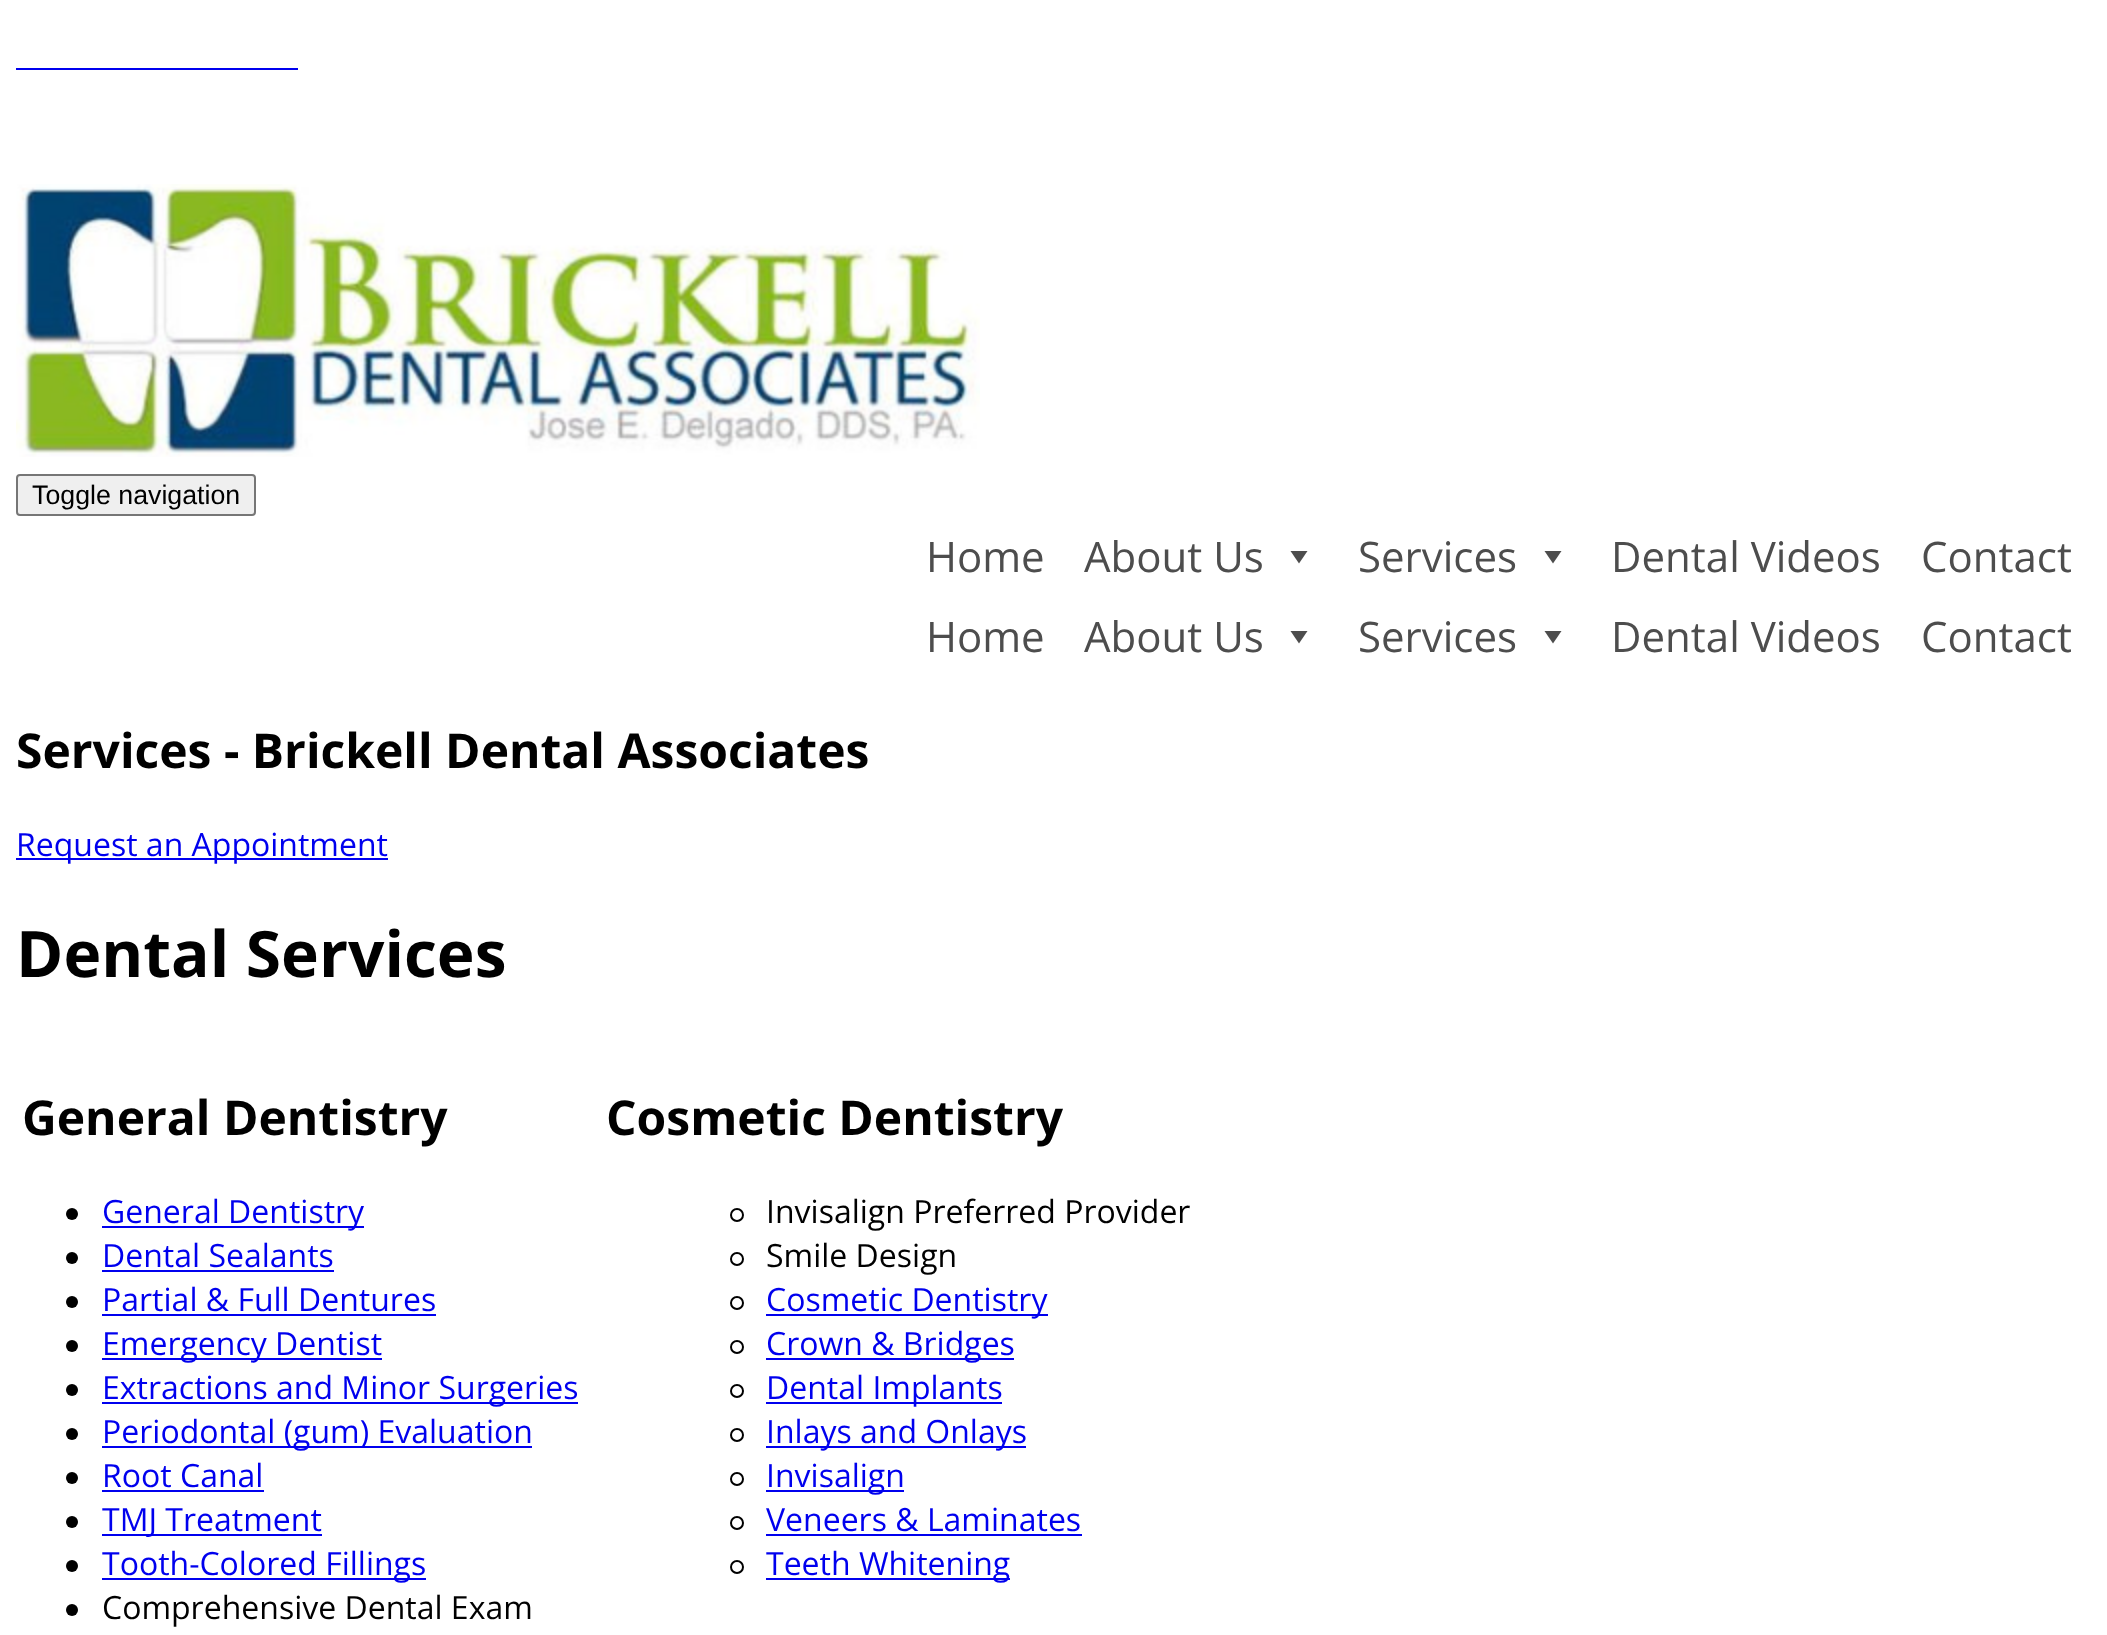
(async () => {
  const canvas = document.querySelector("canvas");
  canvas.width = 2107;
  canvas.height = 1635;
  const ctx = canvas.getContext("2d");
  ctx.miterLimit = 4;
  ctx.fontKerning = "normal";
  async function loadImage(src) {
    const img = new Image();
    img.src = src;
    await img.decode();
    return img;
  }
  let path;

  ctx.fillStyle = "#ffffff";
  ctx.fillRect(0, 0, 2107, 1635);
  ctx.fillStyle = "#0000ee";
  ctx.fillRect(16, 68, 282, 2);
  ctx.drawImage(await loadImage("img/1.png"), 16, 184, 964, 273);
  ctx.fillStyle = "#efefef";
  ctx.beginPath();
  ctx.roundRect(17, 475, 238, 40, 3);
  ctx.fill();
  ctx.strokeStyle = "#767676";
  ctx.lineWidth = 2;
  ctx.stroke();
  ctx.fillStyle = "#4d4d4d";
  path = new Path2D("M1307.5 551L1299 563.5L1290.5 551Z");
  ctx.fill(path);
  path = new Path2D("M1561.5 551L1553 563.5L1544.5 551Z");
  ctx.fill(path);
  path = new Path2D("M1307.5 631L1299 643.5L1290.5 631Z");
  ctx.fill(path);
  path = new Path2D("M1561.5 631L1553 643.5L1544.5 631Z");
  ctx.fill(path);
  ctx.fillStyle = "#0000ee";
  ctx.fillRect(16, 858, 372, 2);
  ctx.fillStyle = "#000000";
  ctx.beginPath();
  ctx.arc(72, 1214, 6, 0, Math.PI * 2);
  ctx.fill();
  ctx.fillStyle = "#0000ee";
  ctx.fillRect(102, 1226, 262, 2);
  ctx.fillStyle = "#000000";
  ctx.beginPath();
  ctx.arc(72, 1258, 6, 0, Math.PI * 2);
  ctx.fill();
  ctx.fillStyle = "#0000ee";
  ctx.fillRect(102, 1270, 232, 2);
  ctx.fillStyle = "#000000";
  ctx.beginPath();
  ctx.arc(72, 1302, 6, 0, Math.PI * 2);
  ctx.fill();
  ctx.fillStyle = "#0000ee";
  ctx.fillRect(102, 1314, 334, 2);
  ctx.fillStyle = "#000000";
  ctx.beginPath();
  ctx.arc(72, 1346, 6, 0, Math.PI * 2);
  ctx.fill();
  ctx.fillStyle = "#0000ee";
  ctx.fillRect(102, 1358, 280, 2);
  ctx.fillStyle = "#000000";
  ctx.beginPath();
  ctx.arc(72, 1390, 6, 0, Math.PI * 2);
  ctx.fill();
  ctx.fillStyle = "#0000ee";
  ctx.fillRect(102, 1402, 476, 2);
  ctx.fillStyle = "#000000";
  ctx.beginPath();
  ctx.arc(72, 1434, 6, 0, Math.PI * 2);
  ctx.fill();
  ctx.fillStyle = "#0000ee";
  ctx.fillRect(102, 1446, 430, 2);
  ctx.fillStyle = "#000000";
  ctx.beginPath();
  ctx.arc(72, 1478, 6, 0, Math.PI * 2);
  ctx.fill();
  ctx.fillStyle = "#0000ee";
  ctx.fillRect(102, 1490, 162, 2);
  ctx.fillStyle = "#000000";
  ctx.beginPath();
  ctx.arc(72, 1522, 6, 0, Math.PI * 2);
  ctx.fill();
  ctx.fillStyle = "#0000ee";
  ctx.fillRect(102, 1534, 220, 2);
  ctx.fillStyle = "#000000";
  ctx.beginPath();
  ctx.arc(72, 1566, 6, 0, Math.PI * 2);
  ctx.fill();
  ctx.fillStyle = "#0000ee";
  ctx.fillRect(102, 1578, 324, 2);
  ctx.fillStyle = "#000000";
  ctx.beginPath();
  ctx.arc(72, 1610, 6, 0, Math.PI * 2);
  ctx.fill();
  ctx.beginPath();
  ctx.arc(737, 1215, 6, 0, Math.PI * 2);
  ctx.strokeStyle = "#000000";
  ctx.stroke();
  ctx.beginPath();
  ctx.arc(737, 1259, 6, 0, Math.PI * 2);
  ctx.stroke();
  ctx.beginPath();
  ctx.arc(737, 1303, 6, 0, Math.PI * 2);
  ctx.stroke();
  ctx.fillStyle = "#0000ee";
  ctx.fillRect(766, 1314, 282, 2);
  ctx.beginPath();
  ctx.arc(737, 1347, 6, 0, Math.PI * 2);
  ctx.stroke();
  ctx.fillRect(766, 1358, 248, 2);
  ctx.beginPath();
  ctx.arc(737, 1391, 6, 0, Math.PI * 2);
  ctx.stroke();
  ctx.fillRect(766, 1402, 236, 2);
  ctx.beginPath();
  ctx.arc(737, 1435, 6, 0, Math.PI * 2);
  ctx.stroke();
  ctx.fillRect(766, 1446, 260, 2);
  ctx.beginPath();
  ctx.arc(737, 1479, 6, 0, Math.PI * 2);
  ctx.stroke();
  ctx.fillRect(766, 1490, 138, 2);
  ctx.beginPath();
  ctx.arc(737, 1523, 6, 0, Math.PI * 2);
  ctx.stroke();
  ctx.fillRect(766, 1534, 316, 2);
  ctx.beginPath();
  ctx.arc(737, 1567, 6, 0, Math.PI * 2);
  ctx.stroke();
  ctx.fillRect(766, 1578, 244, 2);
  ctx.font = "26.75px Liberation Sans";
  ctx.fillStyle = "#000000";
  ctx.fillText("Toggle navigation", 32, 504);
  ctx.font = "42px Open Sans";
  ctx.fillStyle = "#4d4d4d";
  for (const [text, x, y] of [
    ["Home", 926, 572],
    ["About Us", 1084, 572],
    ["Services", 1358, 572],
    ["Dental Videos", 1611, 572],
    ["Contact", 1921, 572],
    ["Home", 926, 652],
    ["About Us", 1084, 652],
    ["Services", 1358, 652],
    ["Dental Videos", 1611, 652],
    ["Contact", 1921, 652],
  ]) {
    ctx.fillText(text, x, y);
  }
  ctx.font = "bold 48px Open Sans";
  ctx.fillStyle = "#000000";
  ctx.fillText("Services - Brickell Dental Associates", 16, 768);
  ctx.font = "32px Open Sans";
  ctx.fillStyle = "#0000ee";
  ctx.fillText("Request an Appointment", 16, 856);
  ctx.font = "bold 64px Open Sans";
  ctx.fillStyle = "#000000";
  ctx.fillText("Dental Services", 16, 977);
  ctx.font = "bold 48px Open Sans";
  ctx.fillText("General Dentistry", 22, 1135);
  ctx.font = "32px Open Sans";
  ctx.fillStyle = "#0000ee";
  for (const [text, x, y] of [
    ["General Dentistry", 102, 1223],
    ["Dental Sealants", 102, 1267],
    ["Partial & Full Dentures", 102, 1311],
    ["Emergency Dentist", 102, 1355],
    ["Extractions and Minor Surgeries", 102, 1399],
    ["Periodontal (gum) Evaluation", 102, 1443],
    ["Root Canal", 102, 1487],
    ["TMJ Treatment", 102, 1531],
    ["Tooth-Colored Fillings", 102, 1575],
  ]) {
    ctx.fillText(text, x, y);
  }
  ctx.fillStyle = "#000000";
  ctx.fillText("Comprehensive Dental Exam", 102, 1619);
  ctx.font = "bold 48px Open Sans";
  ctx.fillText("Cosmetic Dentistry", 606, 1135);
  ctx.font = "32px Open Sans";
  ctx.fillText("Invisalign Preferred Provider", 766, 1223);
  ctx.fillText("Smile Design", 766, 1267);
  ctx.fillStyle = "#0000ee";
  for (const [text, x, y] of [
    ["Cosmetic Dentistry", 766, 1311],
    ["Crown & Bridges", 766, 1355],
    ["Dental Implants", 766, 1399],
    ["Inlays and Onlays", 766, 1443],
    ["Invisalign", 766, 1487],
    ["Veneers & Laminates", 766, 1531],
    ["Teeth Whitening", 766, 1575],
  ]) {
    ctx.fillText(text, x, y);
  }
})();
